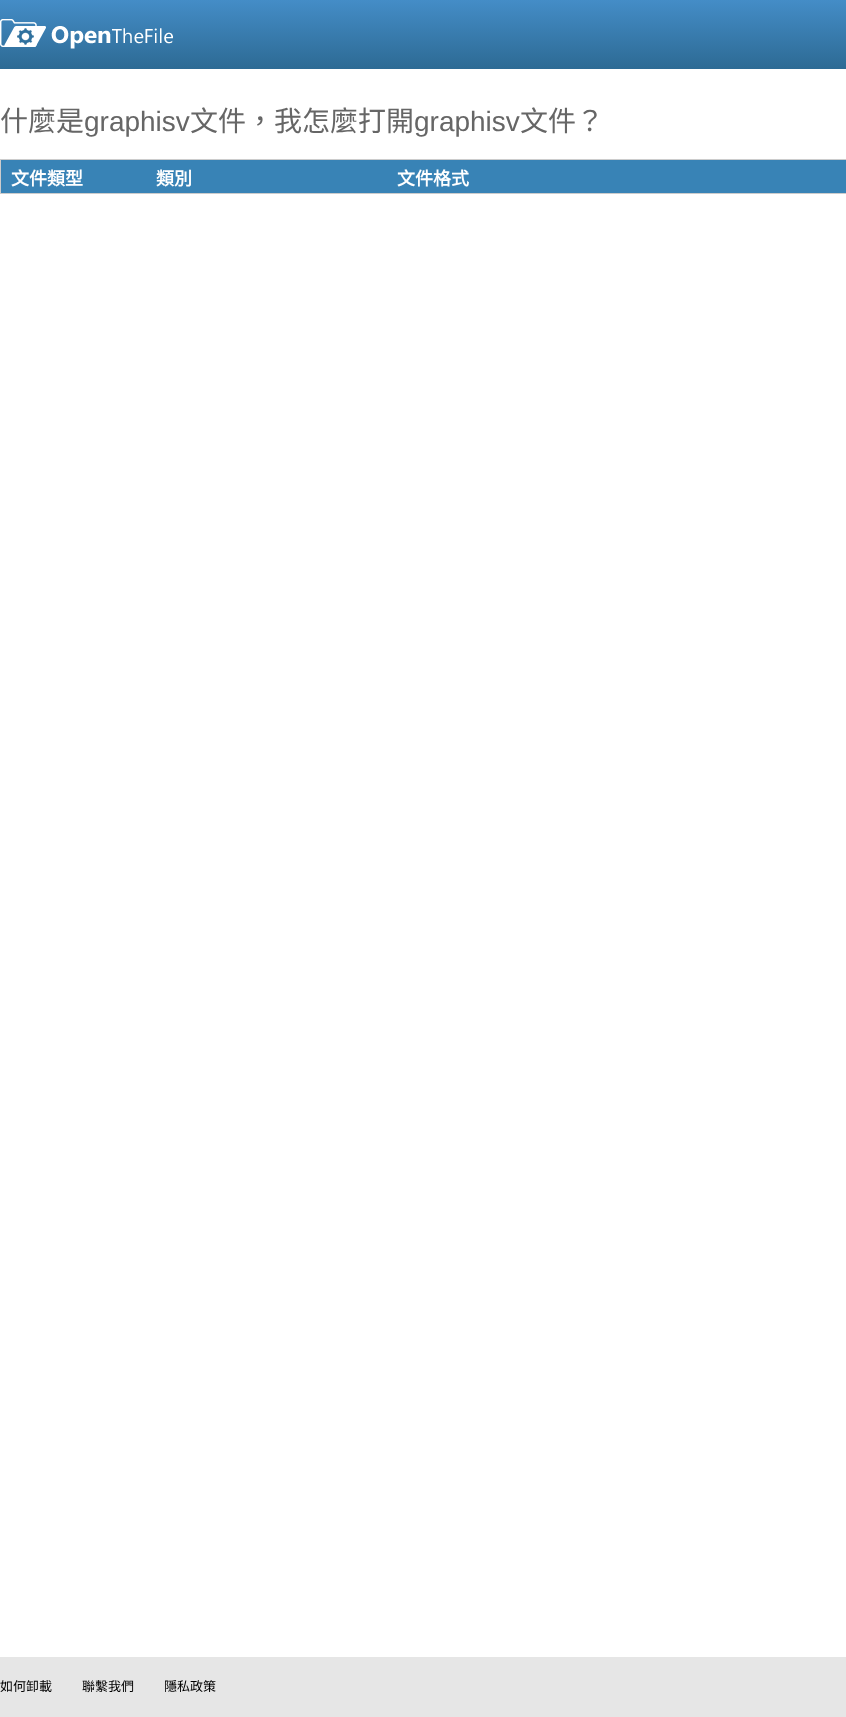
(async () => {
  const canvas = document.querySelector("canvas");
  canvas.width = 846;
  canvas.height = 1717;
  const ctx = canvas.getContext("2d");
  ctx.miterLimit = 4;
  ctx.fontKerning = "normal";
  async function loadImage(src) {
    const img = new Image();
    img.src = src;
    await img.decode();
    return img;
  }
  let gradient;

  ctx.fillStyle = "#ffffff";
  ctx.fillRect(0, 0, 846, 1717);
  gradient = ctx.createLinearGradient(628, 0, 628, 69);
  gradient.addColorStop(0, "#448dc7");
  gradient.addColorStop(1, "#2d6a94");
  ctx.fillStyle = gradient;
  ctx.fillRect(0, 0, 846, 69);
  ctx.drawImage(await loadImage("img/1.png"), 0, 19, 173, 30);
  for (const [x, y, w, h, color] of [
    [0, 159, 846, 1, "#cccccc"],
    [0, 193, 846, 1, "#cccccc"],
    [0, 159, 1, 35, "#cccccc"],
    [1, 160, 845, 33, "#3883b6"],
    [0, 1657, 846, 60, "#e6e6e6"],
  ]) {
    ctx.fillStyle = color;
    ctx.fillRect(x, y, w, h);
  }
  ctx.font = "28px Noto Sans CJK TC";
  ctx.fillStyle = "#666666";
  ctx.fillText("什麼是", 0, 131);
  ctx.font = "28px Liberation Sans";
  ctx.fillText("graphisv", 84, 131);
  ctx.font = "28px Noto Sans CJK TC";
  ctx.fillText("文件，我怎麼打開", 190, 131);
  ctx.font = "28px Liberation Sans";
  ctx.fillText("graphisv", 414, 131);
  ctx.font = "28px Noto Sans CJK TC";
  ctx.fillText("文件？", 520, 131);
  ctx.font = "bold 18px Noto Sans CJK TC";
  ctx.fillStyle = "#ffffff";
  for (const [text, x, y] of [
    ["文件類型", 11, 185],
    ["類別", 156, 185],
    ["文件格式", 397, 185],
  ]) {
    ctx.fillText(text, x, y);
  }
  ctx.font = "13px Noto Sans CJK TC";
  ctx.fillStyle = "#000000";
  for (const [text, x, y] of [
    ["如何卸載", 0, 1691],
    ["聯繫我們", 82, 1691],
    ["隱私政策", 164, 1691],
  ]) {
    ctx.fillText(text, x, y);
  }
})();
